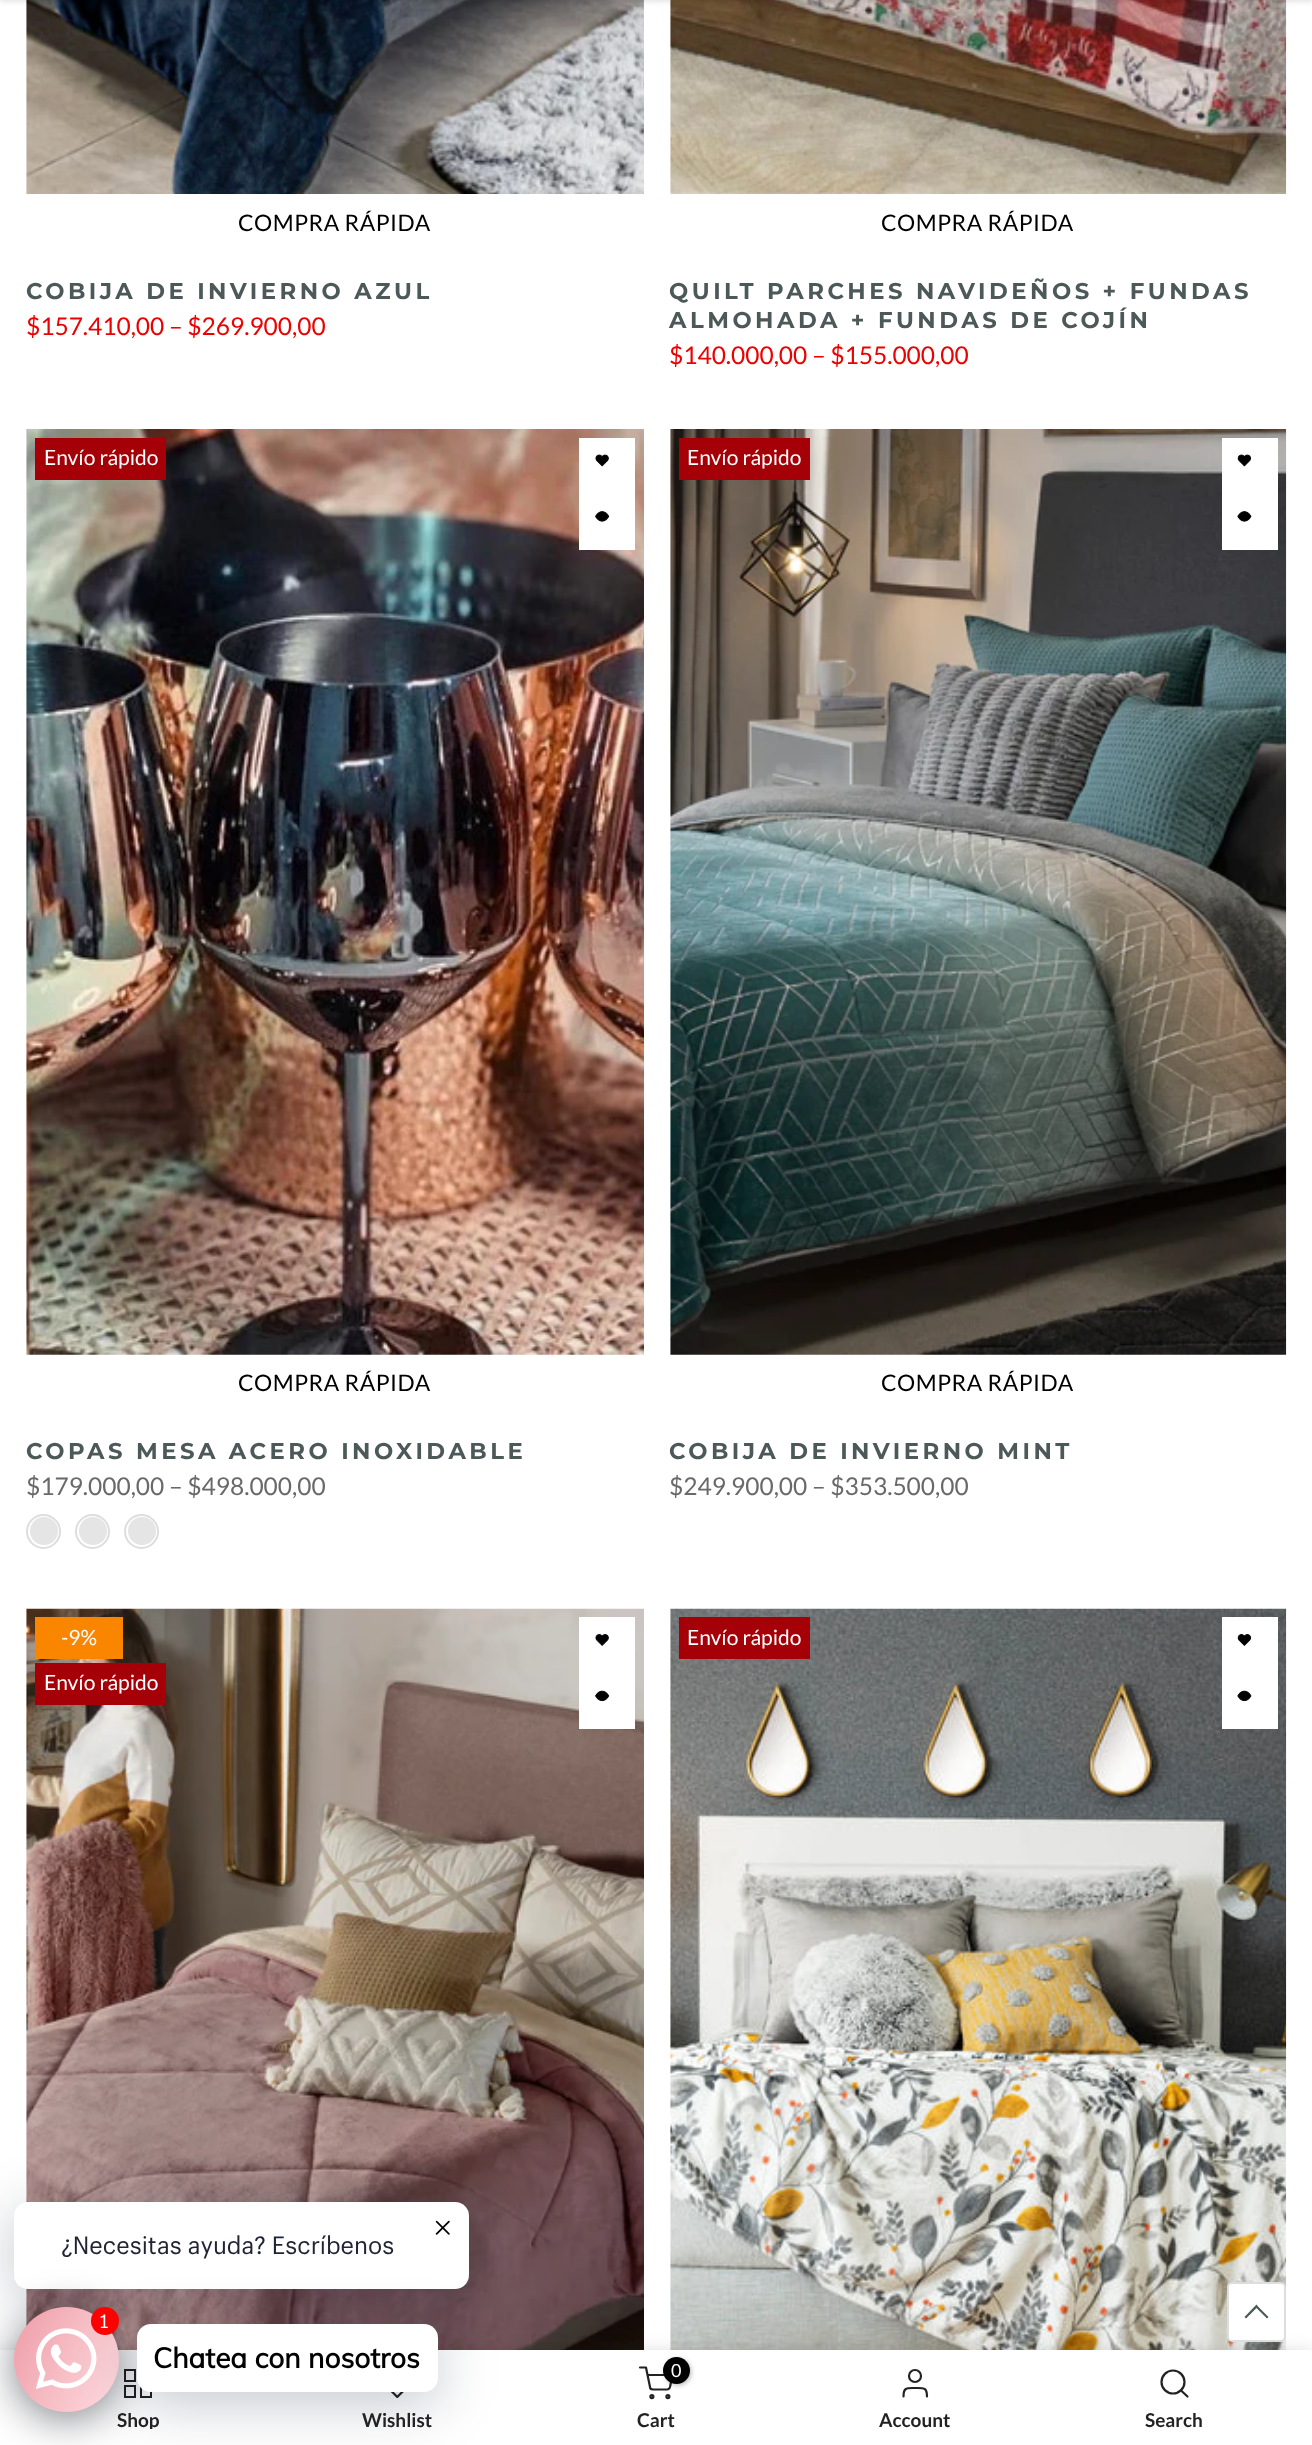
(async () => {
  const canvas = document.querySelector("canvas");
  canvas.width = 1312;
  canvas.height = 2445;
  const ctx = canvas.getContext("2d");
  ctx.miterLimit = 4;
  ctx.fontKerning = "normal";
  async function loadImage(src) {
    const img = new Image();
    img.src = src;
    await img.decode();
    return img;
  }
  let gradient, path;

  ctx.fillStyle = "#ffffff";
  ctx.fillRect(0, 0, 1312, 2445);
  ctx.drawImage(await loadImage("img/1.png"), 26, 0, 618, 194);
  ctx.drawImage(await loadImage("img/2.png"), 670, 0, 617, 195);
  ctx.fillStyle = "rgba(0, 0, 0, 0.1)";
  ctx.filter = "blur(2.5px)";
  ctx.beginPath();
  ctx.rect(0, -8, 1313, 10);
  ctx.fill();
  ctx.filter = "none";
  ctx.fillStyle = "#ffffff";
  ctx.fillRect(670, 194, 616, 1);
  ctx.drawImage(await loadImage("img/3.png"), 26, 429, 618, 926);
  ctx.fillStyle = "#a50007";
  ctx.fillRect(35, 438, 131, 42);
  ctx.fillStyle = "#ffffff";
  ctx.fillRect(579, 438, 56, 112);
  ctx.drawImage(await loadImage("img/4.png"), 595, 454, 14, 13);
  ctx.drawImage(await loadImage("img/5.png"), 595, 511, 15, 11);
  ctx.beginPath();
  ctx.arc(43.5, 1531.5, 16.5, 0, Math.PI * 2);
  ctx.strokeStyle = "#dddddd";
  ctx.lineWidth = 2;
  ctx.stroke();
  ctx.fillStyle = "#e5e5e5";
  ctx.beginPath();
  ctx.arc(44, 1531, 14, 0, Math.PI * 2);
  ctx.fill();
  ctx.beginPath();
  ctx.arc(92.5, 1531.5, 16.5, 0, Math.PI * 2);
  ctx.stroke();
  ctx.beginPath();
  ctx.arc(93, 1531, 14, 0, Math.PI * 2);
  ctx.fill();
  ctx.beginPath();
  ctx.arc(141.5, 1531.5, 16.5, 0, Math.PI * 2);
  ctx.stroke();
  ctx.beginPath();
  ctx.arc(142, 1531, 14, 0, Math.PI * 2);
  ctx.fill();
  ctx.drawImage(await loadImage("img/6.png"), 670, 429, 617, 926);
  ctx.fillStyle = "#a50007";
  ctx.fillRect(679, 438, 131, 42);
  ctx.fillStyle = "#ffffff";
  ctx.fillRect(1222, 438, 56, 112);
  ctx.drawImage(await loadImage("img/7.png"), 1237, 454, 15, 13);
  ctx.drawImage(await loadImage("img/8.png"), 1237, 511, 15, 11);
  ctx.drawImage(await loadImage("img/9.png"), 26, 1608, 618, 742);
  for (const [x, y, w, h, color] of [
    [35, 1617, 88, 42, "#fa8600"],
    [35, 1663, 131, 42, "#a50007"],
    [579, 1617, 56, 112, "#ffffff"],
  ]) {
    ctx.fillStyle = color;
    ctx.fillRect(x, y, w, h);
  }
  ctx.drawImage(await loadImage("img/10.png"), 595, 1634, 14, 12);
  ctx.drawImage(await loadImage("img/11.png"), 595, 1690, 15, 12);
  ctx.drawImage(await loadImage("img/12.png"), 670, 1608, 617, 742);
  ctx.fillStyle = "#a50007";
  ctx.fillRect(679, 1617, 131, 42);
  ctx.fillStyle = "#ffffff";
  ctx.fillRect(1222, 1617, 56, 112);
  ctx.drawImage(await loadImage("img/13.png"), 1237, 1634, 15, 12);
  ctx.drawImage(await loadImage("img/14.png"), 1237, 1690, 15, 12);
  ctx.fillStyle = "rgba(0, 0, 0, 0.12)";
  ctx.filter = "blur(8px)";
  ctx.beginPath();
  ctx.rect(0, 2350, 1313, 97);
  ctx.fill();
  ctx.filter = "none";
  ctx.fillStyle = "#ffffff";
  ctx.fillRect(0, 2350, 1312, 95);
  ctx.strokeStyle = "#222222";
  ctx.strokeRect(125, 2370, 10, 11);
  ctx.fillStyle = "rgba(0, 18, 46, 0.24)";
  ctx.filter = "blur(28px)";
  ctx.beginPath();
  ctx.roundRect(14, 2212, 455, 88, 14);
  ctx.fill();
  ctx.filter = "none";
  ctx.fillStyle = "#ffffff";
  ctx.beginPath();
  ctx.roundRect(14, 2202, 455, 87, 14);
  ctx.fill();
  ctx.drawImage(await loadImage("img/15.png"), 435, 2220, 15, 15);
  ctx.strokeRect(125, 2386, 10, 11);
  ctx.strokeRect(141, 2386, 10, 11);
  ctx.fillStyle = "rgba(2, 6, 16, 0.5)";
  ctx.filter = "blur(21px)";
  ctx.beginPath();
  ctx.roundRect(14, 2314, 105, 105, 52.5);
  ctx.fill();
  ctx.filter = "none";
  gradient = ctx.createLinearGradient(3.3, 2330, 130, 2388);
  gradient.addColorStop(0, "#ee9ca7");
  gradient.addColorStop(1, "#ffdde1");
  ctx.fillStyle = gradient;
  ctx.beginPath();
  ctx.arc(66.5, 2359.5, 52.5, 0, Math.PI * 2);
  ctx.fill();
  ctx.drawImage(await loadImage("img/17.png"), 390, 2392, 14, 6);
  ctx.fillStyle = "rgba(0, 18, 46, 0.24)";
  ctx.filter = "blur(28px)";
  ctx.beginPath();
  ctx.roundRect(137, 2335, 301, 68, 14);
  ctx.fill();
  ctx.filter = "none";
  ctx.drawImage(await loadImage("img/16.png"), 36, 2328, 61, 61);
  ctx.fillStyle = "#ff0000";
  ctx.beginPath();
  ctx.arc(105, 2321, 14, 0, Math.PI * 2);
  ctx.fill();
  ctx.fillStyle = "#ffffff";
  ctx.beginPath();
  ctx.roundRect(137, 2324, 301, 68, 14);
  ctx.fill();
  ctx.beginPath();
  ctx.roundRect(1228, 2283, 57, 58, 4);
  ctx.fill();
  ctx.strokeStyle = "#dddddd";
  ctx.stroke();
  ctx.fillStyle = "#4d5959";
  path = new Path2D("M1258 2306.5L1256.5 2304.5L1244.5 2317L1246 2318.5L1256.5 2308L1267 2318.5L1268.5 2317L1262.5 2311Z");
  ctx.fill(path);
  path = new Path2D("M640 2367.5H646L650 2387C650 2388.5 651.5 2389.5 653 2389.5H667C668.5 2389.5 669.5 2388.5 670 2387L672.5 2375H647.5");
  ctx.strokeStyle = "#222222";
  ctx.lineWidth = 2.2;
  ctx.lineCap = "round";
  ctx.lineJoin = "round";
  ctx.stroke(path);
  ctx.fillStyle = "rgba(0, 0, 0, 0.3)";
  ctx.filter = "blur(2.5px)";
  ctx.beginPath();
  ctx.roundRect(665, 2359, 26, 26, 13);
  ctx.fill();
  ctx.filter = "none";
  ctx.fillStyle = "#000000";
  ctx.beginPath();
  ctx.arc(676.5, 2370.5, 13.5, 0, Math.PI * 2);
  ctx.fill();
  ctx.beginPath();
  ctx.arc(651.9, 2396.6, 1.5, 0, Math.PI * 2);
  ctx.stroke();
  ctx.beginPath();
  ctx.arc(667.9, 2396.6, 1.5, 0, Math.PI * 2);
  ctx.stroke();
  ctx.beginPath();
  ctx.arc(915, 2376, 6, 0, Math.PI * 2);
  ctx.stroke();
  path = new Path2D("M927 2396.5C927 2387 923.5 2388 915 2388C907 2388 903.5 2387 903.5 2396.5");
  ctx.stroke(path);
  ctx.beginPath();
  ctx.arc(1173, 2382, 11.5, 0, Math.PI * 2);
  ctx.stroke();
  path = new Path2D("M1187.5 2396.5L1181 2390.5");
  ctx.stroke(path);
  ctx.letterSpacing = "0.5px";
  ctx.font = "22.75px Lato";
  ctx.fillText("COMPRA RÁPIDA", 238, 231);
  ctx.letterSpacing = "3.5px";
  ctx.font = "bold 22.75px Montserrat";
  ctx.fillStyle = "#4d5959";
  ctx.fillText("COBIJA DE INVIERNO AZUL", 26, 299);
  ctx.letterSpacing = "0px";
  ctx.font = "24.5px Lato";
  ctx.fillStyle = "#ec0101";
  ctx.fillText("$157.410,00 – $269.900,00", 26, 335);
  ctx.letterSpacing = "0.5px";
  ctx.font = "22.75px Lato";
  ctx.fillStyle = "#000000";
  ctx.fillText("COMPRA RÁPIDA", 881, 231);
  ctx.letterSpacing = "3.5px";
  ctx.font = "bold 22.75px Montserrat";
  ctx.fillStyle = "#4d5959";
  ctx.fillText("QUILT PARCHES NAVIDEÑOS + FUNDAS", 669, 299);
  ctx.fillText("ALMOHADA + FUNDAS DE COJÍN", 669, 328);
  ctx.letterSpacing = "0px";
  ctx.font = "24.5px Lato";
  ctx.fillStyle = "#ec0101";
  ctx.fillText("$140.000,00 – $155.000,00", 669, 364);
  ctx.font = "21px Lato";
  ctx.fillStyle = "#ffffff";
  ctx.fillText("Envío rápido", 44, 465);
  ctx.letterSpacing = "0.5px";
  ctx.font = "22.75px Lato";
  ctx.fillStyle = "#000000";
  ctx.fillText("COMPRA RÁPIDA", 238, 1391);
  ctx.letterSpacing = "3.5px";
  ctx.font = "bold 22.75px Montserrat";
  ctx.fillStyle = "#4d5959";
  ctx.fillText("COPAS MESA ACERO INOXIDABLE", 26, 1459);
  ctx.letterSpacing = "0px";
  ctx.font = "24.5px Lato";
  ctx.fillStyle = "#696969";
  ctx.fillText("$179.000,00 – $498.000,00", 26, 1495);
  ctx.font = "21px Lato";
  ctx.fillStyle = "#ffffff";
  ctx.fillText("Envío rápido", 687, 465);
  ctx.letterSpacing = "0.5px";
  ctx.font = "22.75px Lato";
  ctx.fillStyle = "#000000";
  ctx.fillText("COMPRA RÁPIDA", 881, 1391);
  ctx.letterSpacing = "3.5px";
  ctx.font = "bold 22.75px Montserrat";
  ctx.fillStyle = "#4d5959";
  ctx.fillText("COBIJA DE INVIERNO MINT", 669, 1459);
  ctx.letterSpacing = "0px";
  ctx.font = "24.5px Lato";
  ctx.fillStyle = "#696969";
  ctx.fillText("$249.900,00 – $353.500,00", 669, 1495);
  ctx.font = "21px Lato";
  ctx.fillStyle = "#ffffff";
  for (const [text, x, y] of [
    ["-9%", 61, 1645],
    ["Envío rápido", 44, 1690],
    ["Envío rápido", 687, 1645],
  ]) {
    ctx.fillText(text, x, y);
  }
  ctx.font = "24.5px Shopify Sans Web";
  ctx.fillStyle = "#1e2433";
  ctx.fillText("¿Necesitas ayuda? Escríbenos", 61, 2254);
  ctx.font = "19px Shopify Sans Web";
  ctx.fillStyle = "#ffffff";
  ctx.fillText("1", 100, 2328);
  ctx.font = "bold 28px Muli";
  ctx.fillStyle = "#000000";
  ctx.fillText("Chatea con nosotros", 153, 2368);
  ctx.save();
  ctx.beginPath();
  ctx.rect(26, 2410, 224, 19);
  ctx.clip();
  ctx.font = "bold 19px Lato";
  ctx.fillStyle = "#222222";
  ctx.fillText("Shop", 117, 2427);
  ctx.restore();
  ctx.font = "bold 19px Lato";
  ctx.fillStyle = "#222222";
  ctx.fillText("Wishlist", 362, 2427);
  ctx.font = "18px Lato";
  ctx.fillStyle = "#ffffff";
  ctx.fillText("0", 671, 2377);
  ctx.font = "bold 19px Lato";
  ctx.fillStyle = "#222222";
  for (const [text, x, y] of [
    ["Cart", 637, 2427],
    ["Account", 879, 2427],
    ["Search", 1145, 2427],
  ]) {
    ctx.fillText(text, x, y);
  }
})();
